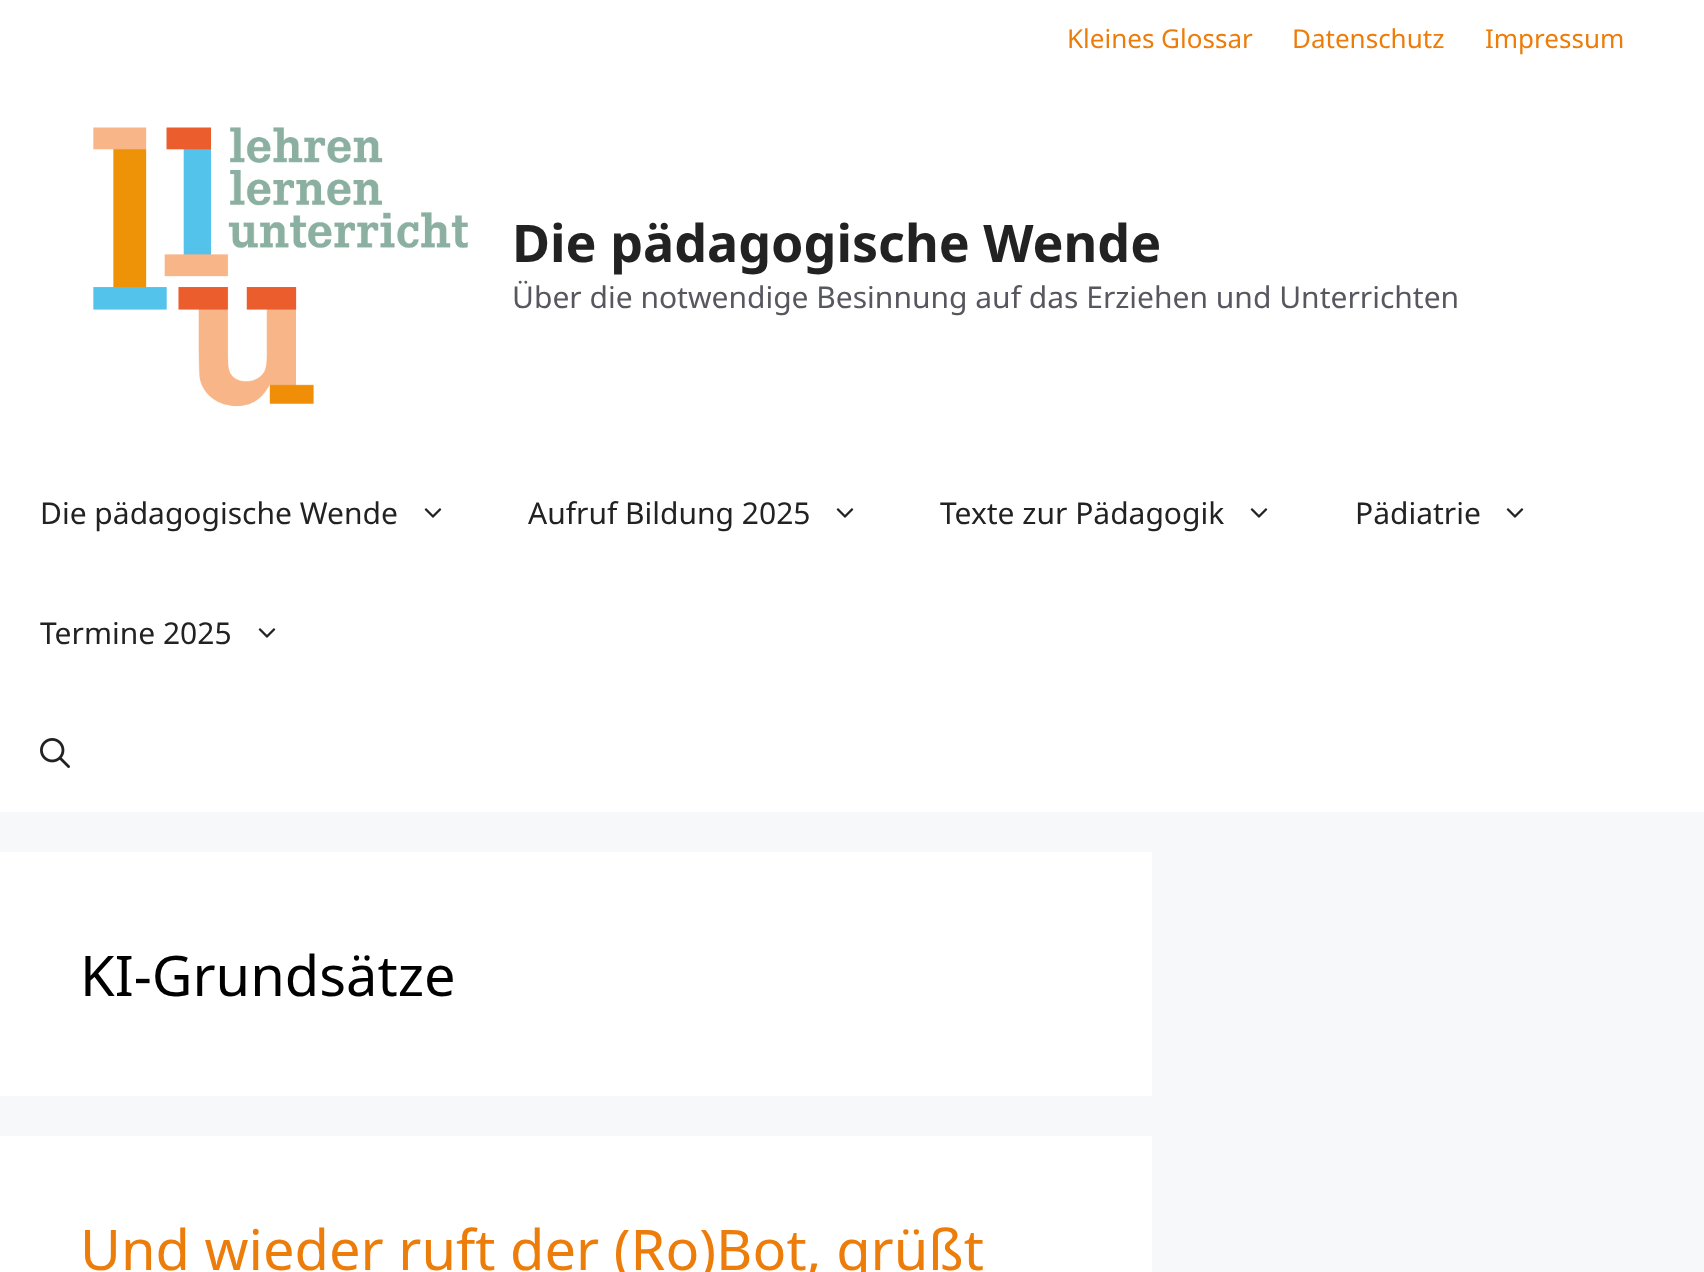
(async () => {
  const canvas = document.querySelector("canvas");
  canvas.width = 1704;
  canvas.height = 1272;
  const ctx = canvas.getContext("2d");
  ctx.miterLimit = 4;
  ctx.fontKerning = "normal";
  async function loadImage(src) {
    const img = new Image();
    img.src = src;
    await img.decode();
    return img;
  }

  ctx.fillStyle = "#f7f8f9";
  ctx.fillRect(0, 0, 1704, 1272);
  ctx.fillStyle = "#ffffff";
  ctx.fillRect(0, 0, 1704, 80);
  ctx.fillRect(0, 80, 1704, 732);
  ctx.drawImage(await loadImage("img/1.png"), 93, 127, 375, 280);
  ctx.drawImage(await loadImage("img/2.png"), 424, 508, 18, 10);
  ctx.drawImage(await loadImage("img/2.png"), 836, 508, 18, 10);
  ctx.drawImage(await loadImage("img/2.png"), 1250, 508, 18, 10);
  ctx.drawImage(await loadImage("img/2.png"), 1506, 508, 18, 10);
  ctx.drawImage(await loadImage("img/2.png"), 258, 628, 18, 10);
  ctx.drawImage(await loadImage("img/3.png"), 40, 738, 30, 30);
  ctx.fillRect(0, 852, 1152, 244);
  ctx.fillRect(0, 1136, 1152, 136);
  ctx.font = "26px Noto Sans";
  ctx.fillStyle = "#ed7d0b";
  for (const [text, x, y] of [
    ["Kleines Glossar", 1067, 48],
    ["Datenschutz", 1292, 48],
    ["Impressum", 1485, 48],
  ]) {
    ctx.fillText(text, x, y);
  }
  ctx.font = "bold 52px Noto Sans";
  ctx.fillStyle = "#222222";
  ctx.fillText("Die pädagogische Wende", 512, 262);
  ctx.font = "30px Noto Sans";
  ctx.fillStyle = "#575760";
  ctx.fillText("Über die notwendige Besinnung auf das Erziehen und Unterrichten", 512, 308);
  ctx.fillStyle = "#222222";
  for (const [text, x, y] of [
    ["Die pädagogische Wende", 40, 524],
    ["Aufruf Bildung 2025", 528, 524],
    ["Texte zur Pädagogik", 940, 524],
    ["Pädiatrie", 1355, 524],
    ["Termine 2025", 40, 644],
  ]) {
    ctx.fillText(text, x, y);
  }
  ctx.font = "56px Noto Sans";
  ctx.fillStyle = "#000000";
  ctx.fillText("KI-Grundsätze", 80, 996);
  ctx.fillStyle = "#ed7d0b";
  ctx.fillText("Und wieder ruft der (Ro)Bot, grüßt", 80, 1270);
})();
